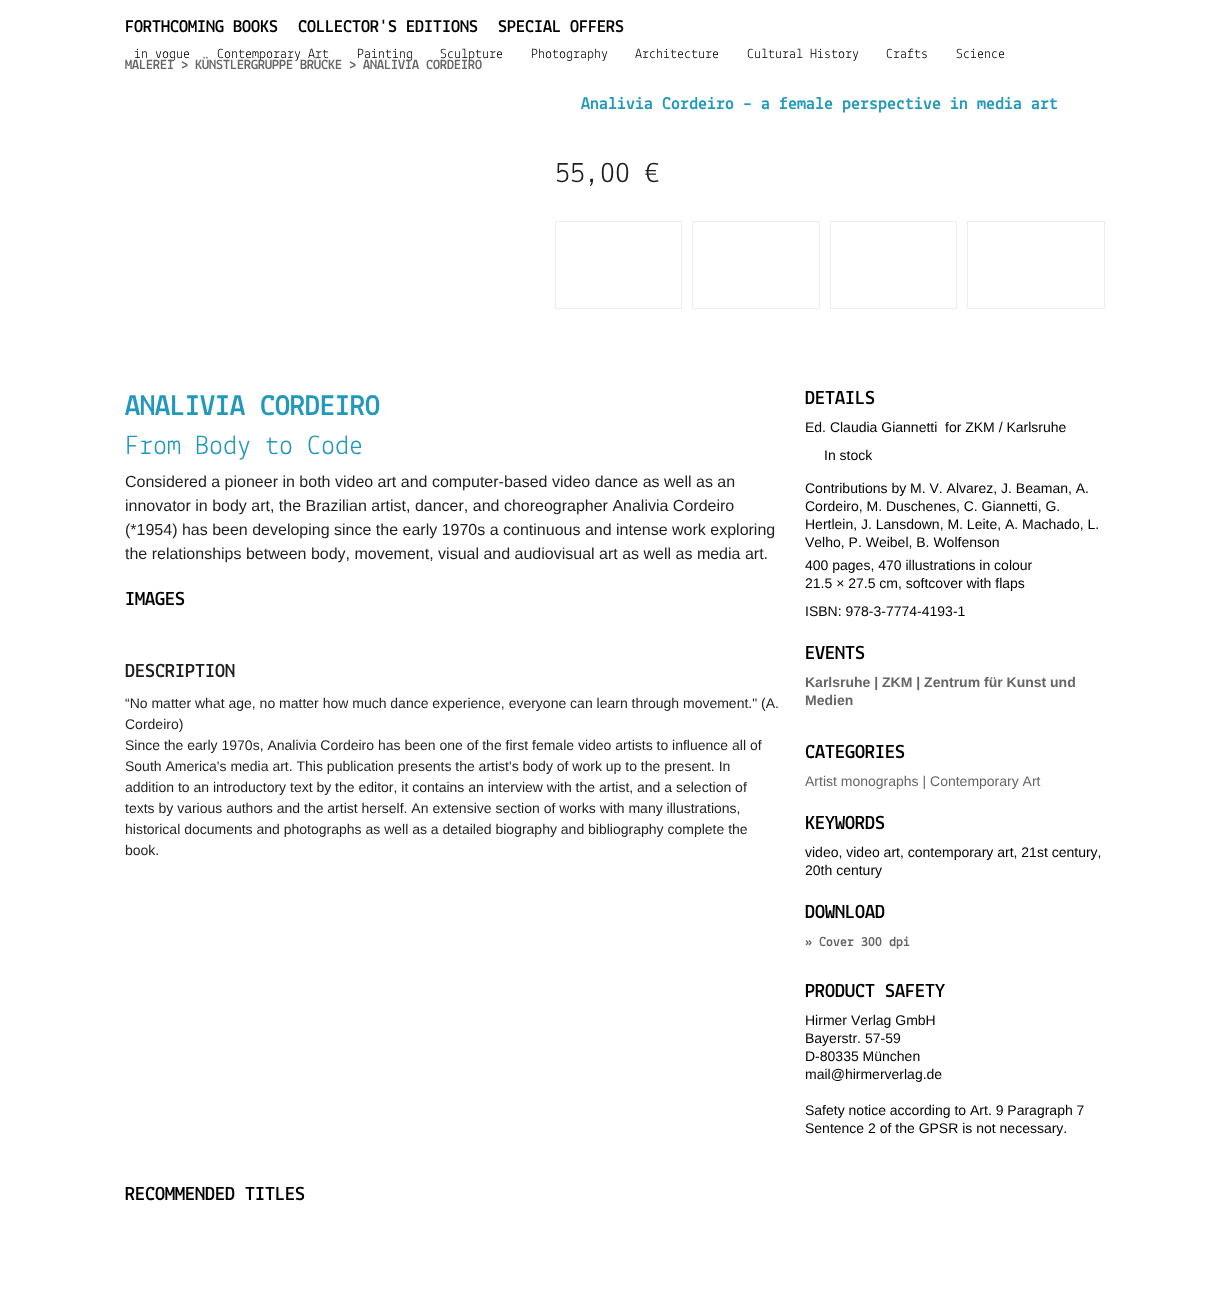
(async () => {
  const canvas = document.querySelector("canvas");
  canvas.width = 1229;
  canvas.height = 1309;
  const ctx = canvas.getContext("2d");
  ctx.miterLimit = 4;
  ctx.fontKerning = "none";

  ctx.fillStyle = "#ffffff";
  ctx.fillRect(0, 0, 1229, 1309);
  ctx.strokeStyle = "#eeeeee";
  ctx.strokeRect(555.5, 221.5, 126, 87);
  ctx.strokeRect(692.5, 221.5, 127, 87);
  ctx.strokeRect(830.5, 221.5, 126, 87);
  ctx.strokeRect(967.5, 221.5, 137, 87);
  ctx.font = "bold 18px Lekton";
  ctx.fillStyle = "#000000";
  for (const [text, x, y] of [
    ["FORTHCOMING BOOKS", 125, 32],
    ["COLLECTOR'S EDITIONS", 298, 32],
    ["SPECIAL OFFERS", 498, 32],
  ]) {
    ctx.fillText(text, x, y);
  }
  ctx.font = "14px Lekton";
  for (const [text, x, y] of [
    ["in vogue", 134, 58],
    ["Contemporary Art", 217, 58],
    ["Painting", 357, 58],
    ["Sculpture", 440, 58],
    ["Photography", 531, 58],
    ["Architecture", 635, 58],
    ["Cultural History", 747, 58],
    ["Crafts", 886, 58],
    ["Science", 956, 58],
  ]) {
    ctx.fillText(text, x, y);
  }
  ctx.font = "bold 14px Lekton";
  ctx.fillStyle = "#666666";
  ctx.fillText("MALEREI > KÜNSTLERGRUPPE BRÜCKE > ANALIVIA CORDEIRO", 125, 69);
  ctx.font = "bold 18px Lekton";
  ctx.fillStyle = "#2299bb";
  ctx.fillText("Analivia Cordeiro – a female perspective in media art", 581, 109);
  ctx.font = "30px Lekton";
  ctx.fillStyle = "#1f1f1f";
  ctx.fillText("55,00 €", 555, 182);
  ctx.font = "bold 30px Lekton";
  ctx.fillStyle = "#2299bb";
  ctx.fillText("ANALIVIA CORDEIRO", 125, 415);
  ctx.font = "28px Lekton";
  ctx.fillText("From Body to Code", 125, 454);
  ctx.font = "16px Liberation Sans";
  ctx.fillStyle = "#1f1f1f";
  for (const [text, x, y] of [
    ["Considered a pioneer in both video art and computer-based video dance as well as an", 125, 487],
    ["innovator in body art, the Brazilian artist, dancer, and choreographer Analivia Cordeiro", 125, 511],
    ["(*1954) has been developing since the early 1970s a continuous and intense work exploring", 125, 535],
    ["the relationships between body, movement, visual and audiovisual art as well as media art.", 125, 559],
  ]) {
    ctx.fillText(text, x, y);
  }
  ctx.font = "bold 20px Lekton";
  ctx.fillStyle = "#000000";
  ctx.fillText("IMAGES", 125, 605);
  ctx.fillStyle = "#1f1f1f";
  ctx.fillText("DESCRIPTION", 125, 677);
  ctx.font = "14px Liberation Sans";
  for (const [text, x, y] of [
    ["“No matter what age, no matter how much dance experience, everyone can learn through movement.\" (A.", 125, 708],
    ["Cordeiro)", 125, 729],
    ["Since the early 1970s, Analivia Cordeiro has been one of the first female video artists to influence all of", 125, 750],
    ["South America's media art. This publication presents the artist's body of work up to the present. In", 125, 771],
    ["addition to an introductory text by the editor, it contains an interview with the artist, and a selection of", 125, 792],
    ["texts by various authors and the artist herself. An extensive section of works with many illustrations,", 125, 813],
    ["historical documents and photographs as well as a detailed biography and bibliography complete the", 125, 834],
    ["book.", 125, 855],
  ]) {
    ctx.fillText(text, x, y);
  }
  ctx.font = "bold 20px Lekton";
  ctx.fillStyle = "#000000";
  ctx.fillText("DETAILS", 805, 404);
  ctx.font = "14px Liberation Sans";
  for (const [text, x, y] of [
    ["Ed. Claudia Giannetti", 805, 432],
    ["for ZKM / Karlsruhe", 945, 432],
    ["In stock", 824, 460],
    ["Contributions by M. V. Alvarez, J. Beaman, A.", 805, 493],
    ["Cordeiro, M. Duschenes, C. Giannetti, G.", 805, 511],
    ["Hertlein, J. Lansdown, M. Leite, A. Machado, L.", 805, 529],
    ["Velho, P. Weibel, B. Wolfenson", 805, 547],
    ["400 pages, 470 illustrations in colour", 805, 570],
    ["21.5 × 27.5 cm, softcover with flaps", 805, 588],
    ["ISBN: 978-3-7774-4193-1", 805, 616],
  ]) {
    ctx.fillText(text, x, y);
  }
  ctx.font = "bold 20px Lekton";
  ctx.fillText("EVENTS", 805, 659);
  ctx.font = "bold 14px Liberation Sans";
  ctx.fillStyle = "#666666";
  ctx.fillText("Karlsruhe | ZKM | Zentrum für Kunst und", 805, 687);
  ctx.fillText("Medien", 805, 705);
  ctx.font = "bold 20px Lekton";
  ctx.fillStyle = "#000000";
  ctx.fillText("CATEGORIES", 805, 758);
  ctx.font = "14px Liberation Sans";
  ctx.fillStyle = "#666666";
  ctx.fillText("Artist monographs | Contemporary Art", 805, 786);
  ctx.font = "bold 20px Lekton";
  ctx.fillStyle = "#000000";
  ctx.fillText("KEYWORDS", 805, 829);
  ctx.font = "14px Liberation Sans";
  ctx.fillText("video, video art, contemporary art, 21st century,", 805, 857);
  ctx.fillText("20th century", 805, 875);
  ctx.font = "bold 20px Lekton";
  ctx.fillText("DOWNLOAD", 805, 918);
  ctx.font = "bold 14px Lekton";
  ctx.fillStyle = "#666666";
  ctx.fillText("» Cover 300 dpi", 805, 946);
  ctx.font = "bold 20px Lekton";
  ctx.fillStyle = "#000000";
  ctx.fillText("PRODUCT SAFETY", 805, 997);
  ctx.font = "14px Liberation Sans";
  for (const [text, x, y] of [
    ["Hirmer Verlag GmbH", 805, 1025],
    ["Bayerstr. 57-59", 805, 1043],
    ["D-80335 München", 805, 1061],
    ["mail@hirmerverlag.de", 805, 1079],
    ["Safety notice according to Art. 9 Paragraph 7", 805, 1115],
    ["Sentence 2 of the GPSR is not necessary.", 805, 1133],
  ]) {
    ctx.fillText(text, x, y);
  }
  ctx.font = "bold 20px Lekton";
  ctx.fillText("RECOMMENDED TITLES", 125, 1200);
})();
